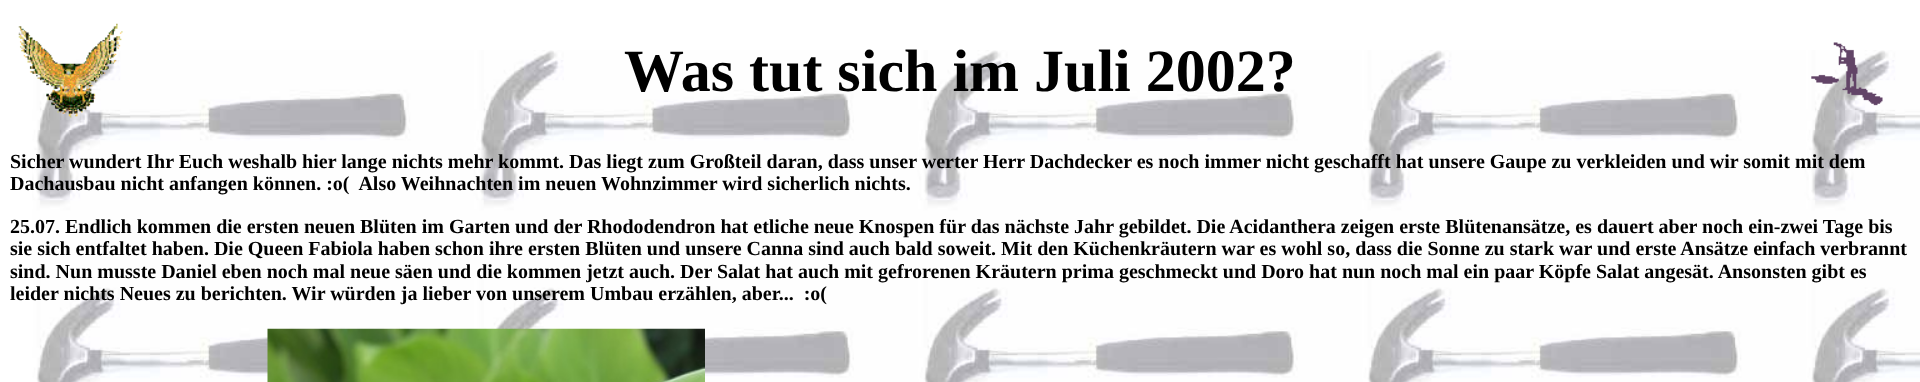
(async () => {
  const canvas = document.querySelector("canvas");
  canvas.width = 1920;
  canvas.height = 382;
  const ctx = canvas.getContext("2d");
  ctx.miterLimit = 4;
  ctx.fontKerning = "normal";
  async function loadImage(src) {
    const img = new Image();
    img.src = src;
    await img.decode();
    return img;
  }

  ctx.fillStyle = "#ffffff";
  ctx.fillRect(0, 0, 1920, 382);
  ctx.drawImage(await loadImage("img/1.png"), 32, 50, 1888, 332);
  ctx.drawImage(await loadImage("img/2.png"), 18, 23, 105, 95);
  ctx.drawImage(await loadImage("img/3.png"), 1811, 42, 72, 64);
  ctx.drawImage(await loadImage("img/4.png"), 267, 328, 438, 54);
  ctx.font = "bold 60px Liberation Serif";
  ctx.fillStyle = "#000000";
  ctx.fillText("Was tut sich im Juli 2002?", 624, 91);
  ctx.font = "bold 20px Liberation Serif";
  for (const [text, x, y] of [
    ["Sicher wundert Ihr Euch weshalb hier lange nichts mehr kommt. Das liegt zum Großteil daran, dass unser werter Herr Dachdecker es noch immer nicht geschafft hat unsere Gaupe zu verkleiden und wir somit mit dem", 10, 168],
    ["Dachausbau nicht anfangen können. :o(  Also Weihnachten im neuen Wohnzimmer wird sicherlich nichts.", 10, 190],
    ["25.07. Endlich kommen die ersten neuen Blüten im Garten und der Rhododendron hat etliche neue Knospen für das nächste Jahr gebildet. Die Acidanthera zeigen erste Blütenansätze, es dauert aber noch ein-zwei Tage bis", 10, 233],
    ["sie sich entfaltet haben. Die Queen Fabiola haben schon ihre ersten Blüten und unsere Canna sind auch bald soweit. Mit den Küchenkräutern war es wohl so, dass die Sonne zu stark war und erste Ansätze einfach verbrannt", 10, 255],
    ["sind. Nun musste Daniel eben noch mal neue säen und die kommen jetzt auch. Der Salat hat auch mit gefrorenen Kräutern prima geschmeckt und Doro hat nun noch mal ein paar Köpfe Salat angesät. Ansonsten gibt es", 10, 278],
    ["leider nichts Neues zu berichten. Wir würden ja lieber von unserem Umbau erzählen, aber...  :o(", 10, 300],
  ]) {
    ctx.fillText(text, x, y);
  }
})();
